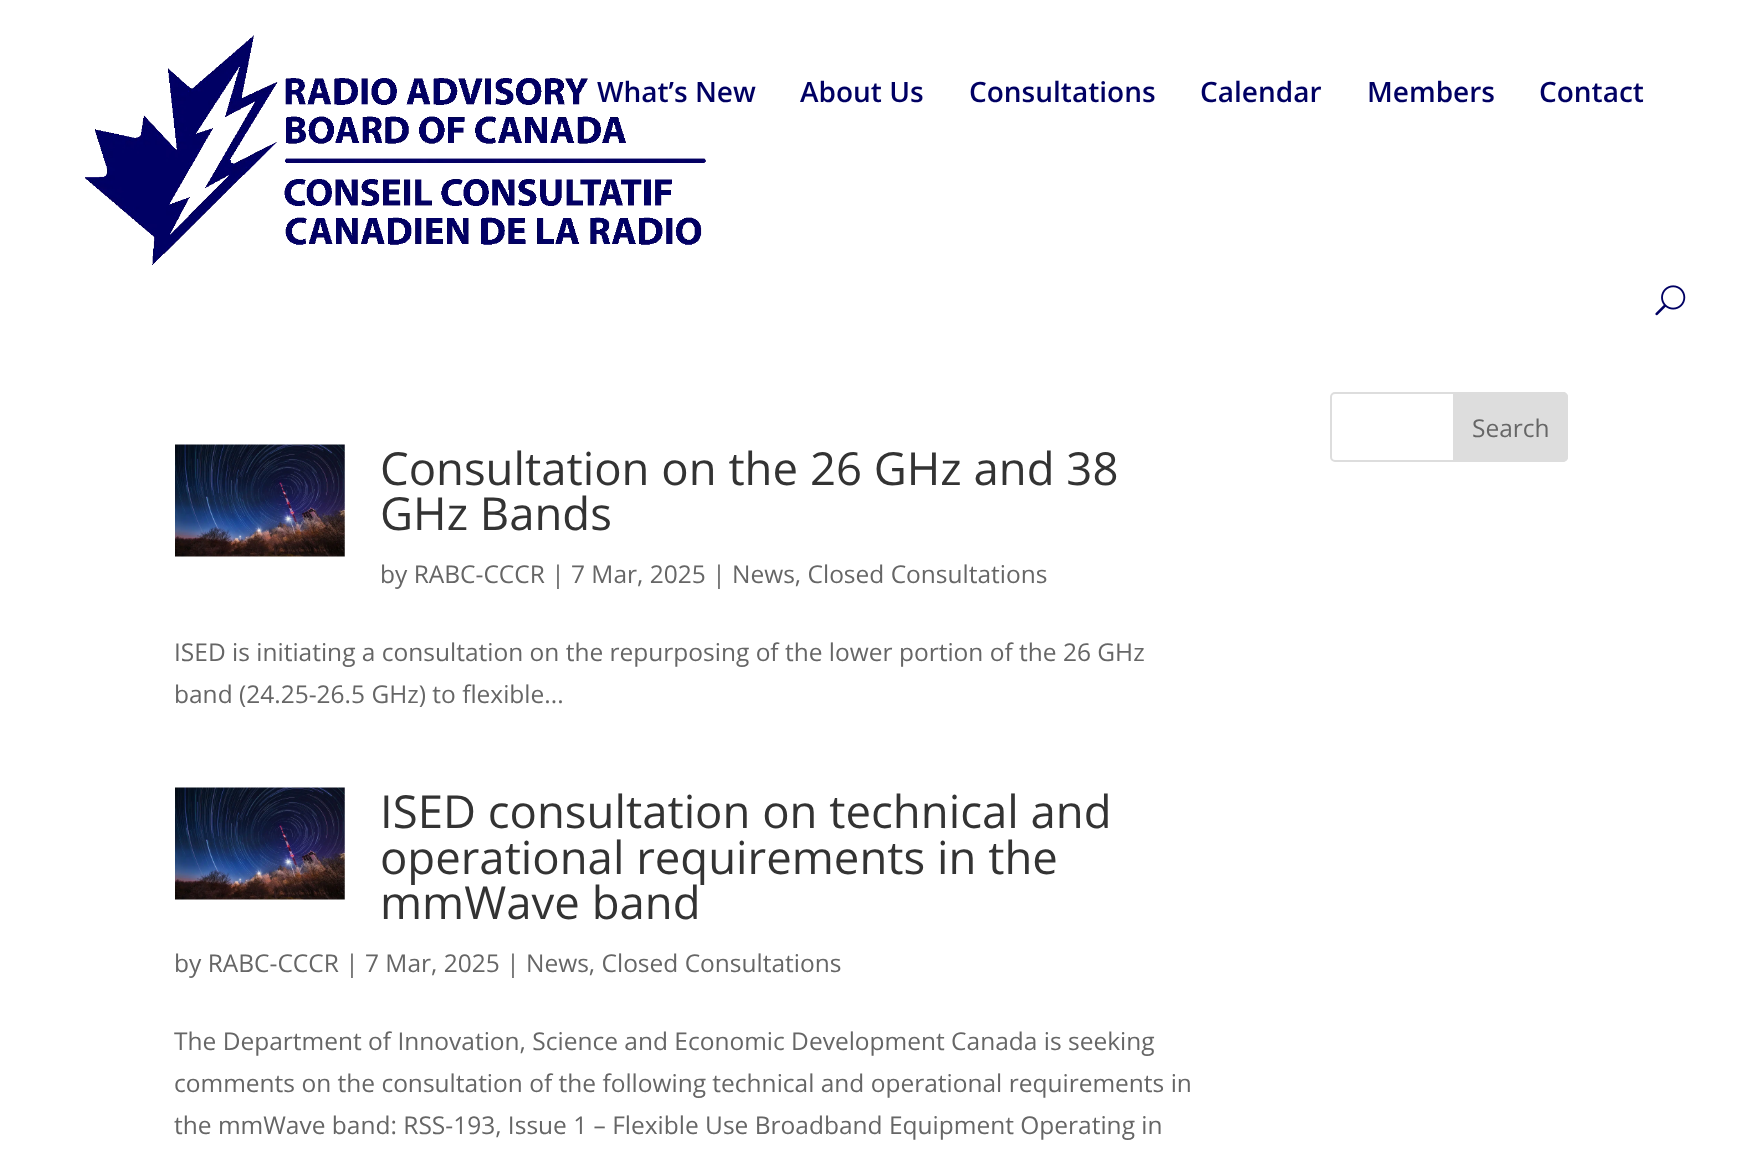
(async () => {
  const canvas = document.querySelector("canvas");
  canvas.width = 1742;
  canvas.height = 1151;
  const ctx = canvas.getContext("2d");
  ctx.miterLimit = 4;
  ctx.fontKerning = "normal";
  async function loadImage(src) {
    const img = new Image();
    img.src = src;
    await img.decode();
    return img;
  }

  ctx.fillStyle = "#ffffff";
  ctx.fillRect(0, 0, 1742, 1151);
  ctx.drawImage(await loadImage("img/1.png"), 85, 35, 621, 230);
  ctx.drawImage(await loadImage("img/2.png"), 1655, 285, 31, 31);
  ctx.beginPath();
  ctx.roundRect(1331, 393, 236, 68, 4);
  ctx.strokeStyle = "#dddddd";
  ctx.lineWidth = 2;
  ctx.stroke();
  ctx.fillStyle = "#dddddd";
  ctx.beginPath();
  ctx.roundRect(1454, 393, 113, 68, [0, 4, 4, 0]);
  ctx.fill();
  ctx.stroke();
  ctx.drawImage(await loadImage("img/3.png"), 175, 444, 170, 113);
  ctx.drawImage(await loadImage("img/3.png"), 175, 787, 170, 113);
  ctx.font = "600 28px Open Sans";
  ctx.fillStyle = "#000063";
  for (const [text, x, y] of [
    ["What’s New", 597, 102],
    ["About Us", 800, 102],
    ["Consultations", 969, 102],
    ["Calendar", 1200, 102],
    ["Members", 1367, 102],
    ["Contact", 1539, 102],
  ]) {
    ctx.fillText(text, x, y);
  }
  ctx.font = "24.5px Open Sans";
  ctx.fillStyle = "#666666";
  ctx.fillText("Search", 1472, 437);
  ctx.font = "45.5px Open Sans";
  ctx.fillStyle = "#333333";
  ctx.fillText("Consultation on the 26 GHz and 38", 380, 485);
  ctx.fillText("GHz Bands", 380, 530);
  ctx.font = "24.5px Open Sans";
  ctx.fillStyle = "#666666";
  for (const [text, x, y] of [
    ["by RABC-CCCR | 7 Mar, 2025 | News, Closed Consultations", 380, 583],
    ["ISED is initiating a consultation on the repurposing of the lower portion of the 26 GHz", 174, 661],
    ["band (24.25-26.5 GHz) to flexible...", 174, 703],
  ]) {
    ctx.fillText(text, x, y);
  }
  ctx.font = "45.5px Open Sans";
  ctx.fillStyle = "#333333";
  for (const [text, x, y] of [
    ["ISED consultation on technical and", 380, 828],
    ["operational requirements in the", 380, 874],
    ["mmWave band", 380, 919],
  ]) {
    ctx.fillText(text, x, y);
  }
  ctx.font = "24.5px Open Sans";
  ctx.fillStyle = "#666666";
  for (const [text, x, y] of [
    ["by RABC-CCCR | 7 Mar, 2025 | News, Closed Consultations", 174, 972],
    ["The Department of Innovation, Science and Economic Development Canada is seeking", 174, 1050],
    ["comments on the consultation of the following technical and operational requirements in", 174, 1092],
    ["the mmWave band: RSS-193, Issue 1 – Flexible Use Broadband Equipment Operating in", 174, 1134],
  ]) {
    ctx.fillText(text, x, y);
  }
})();
